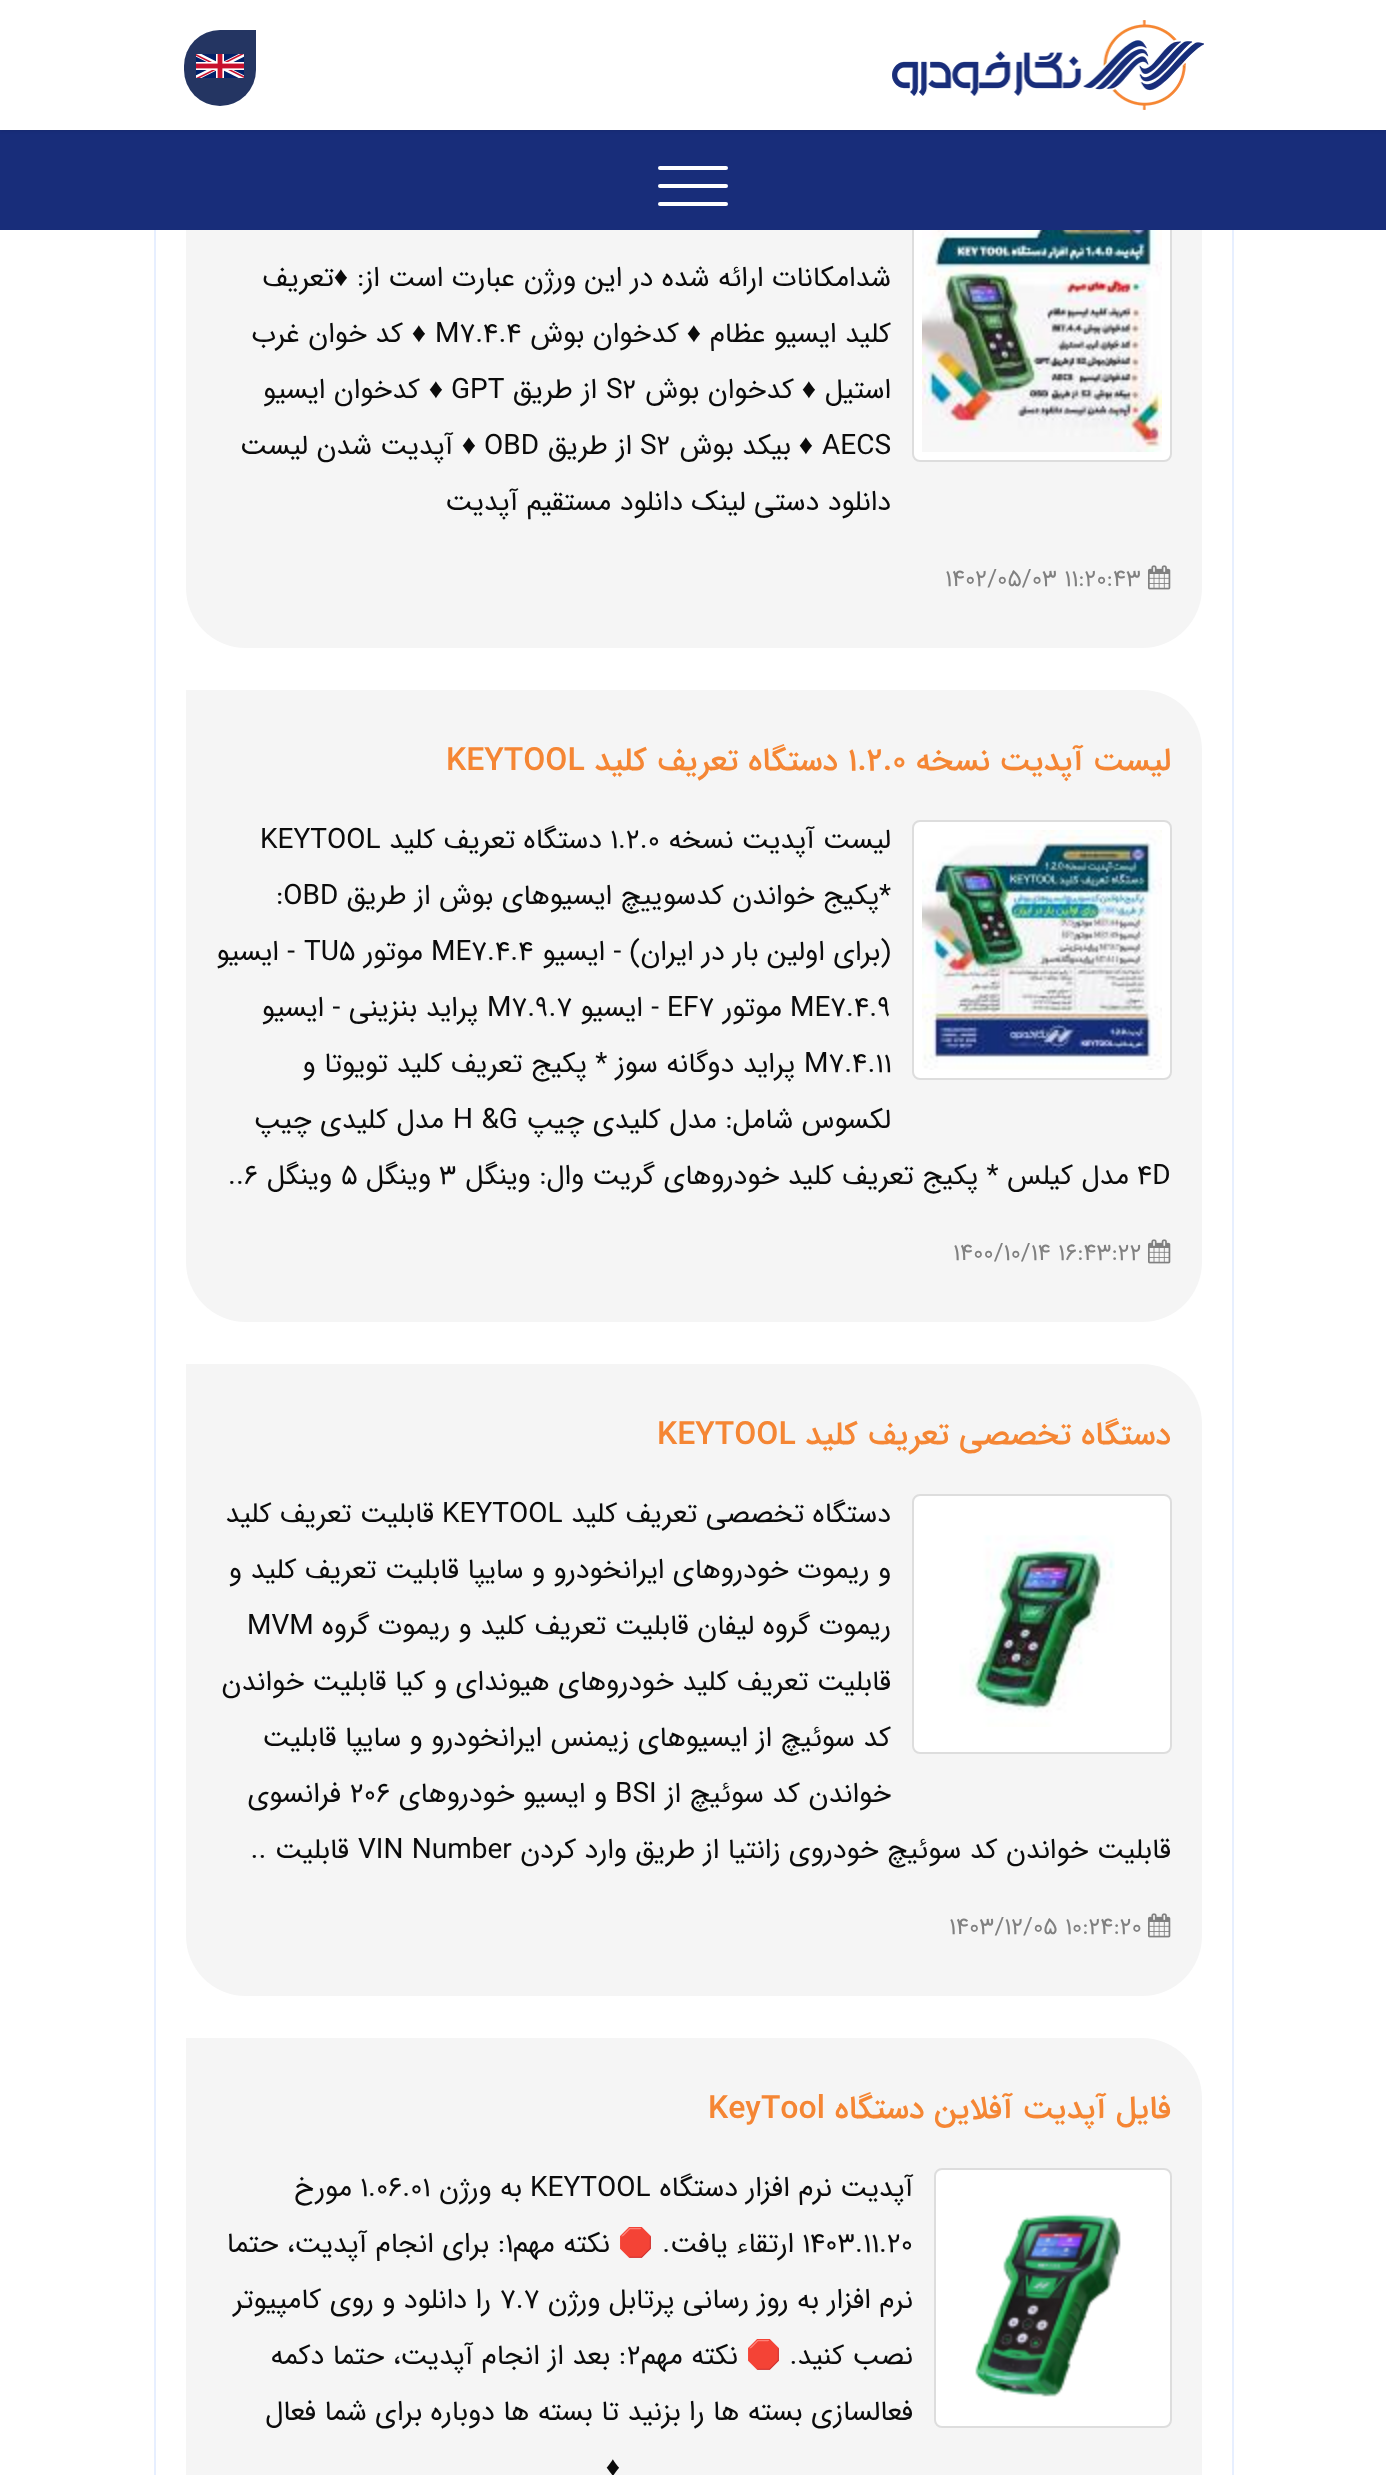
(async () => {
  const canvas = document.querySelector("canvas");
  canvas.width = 1386;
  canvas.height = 2475;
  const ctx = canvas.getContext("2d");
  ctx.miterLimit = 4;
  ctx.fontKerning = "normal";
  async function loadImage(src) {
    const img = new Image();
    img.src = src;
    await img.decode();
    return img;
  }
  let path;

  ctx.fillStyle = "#ffffff";
  ctx.fillRect(0, 0, 1386, 2475);
  ctx.fillStyle = "#f5f5f5";
  ctx.beginPath();
  ctx.roundRect(186, 72, 1016, 576, [0, 60, 60, 60]);
  ctx.fill();
  ctx.fillStyle = "#ffffff";
  ctx.beginPath();
  ctx.roundRect(913, 203, 258, 258, 7);
  ctx.fill();
  ctx.strokeStyle = "#dddddd";
  ctx.lineWidth = 2;
  ctx.stroke();
  ctx.fillStyle = "#182d7a";
  ctx.fillRect(0, 130, 1386, 100);
  ctx.fillStyle = "rgba(0, 0, 0, 0.12)";
  ctx.filter = "blur(2px)";
  ctx.beginPath();
  ctx.rect(0, 0, 1386, 130);
  ctx.fill();
  ctx.filter = "none";
  ctx.fillStyle = "#ffffff";
  ctx.fillRect(0, 0, 1386, 130);
  ctx.drawImage(await loadImage("img/1.png"), 892, 20, 312, 90);
  ctx.fillStyle = "#243562";
  ctx.beginPath();
  ctx.roundRect(184, 30, 72, 76, [36, 0, 36, 36]);
  ctx.fill();
  ctx.drawImage(await loadImage("img/2.png"), 196, 54, 48, 24);
  ctx.fillStyle = "#ffffff";
  ctx.beginPath();
  ctx.roundRect(658, 166, 70, 4, 2);
  ctx.fill();
  ctx.beginPath();
  ctx.roundRect(658, 184, 70, 4, 2);
  ctx.fill();
  ctx.beginPath();
  ctx.roundRect(658, 202, 70, 4, 2);
  ctx.fill();
  ctx.fillStyle = "#e7efff";
  ctx.fillRect(1232, 230, 2, 2245);
  ctx.fillRect(154, 230, 2, 2245);
  ctx.drawImage(await loadImage("img/3.png"), 922, 230, 240, 222);
  ctx.drawImage(await loadImage("img/4.png"), 1148, 565, 23, 25);
  ctx.fillStyle = "#f5f5f5";
  ctx.beginPath();
  ctx.roundRect(186, 690, 1016, 632, [0, 60, 60, 60]);
  ctx.fill();
  ctx.fillStyle = "#ffffff";
  ctx.beginPath();
  ctx.roundRect(913, 821, 258, 258, 7);
  ctx.fill();
  ctx.stroke();
  ctx.drawImage(await loadImage("img/5.png"), 922, 830, 240, 240);
  ctx.drawImage(await loadImage("img/4.png"), 1148, 1239, 23, 25);
  ctx.fillStyle = "#f5f5f5";
  ctx.beginPath();
  ctx.roundRect(186, 1364, 1016, 632, [0, 60, 60, 60]);
  ctx.fill();
  ctx.fillStyle = "#ffffff";
  ctx.beginPath();
  ctx.roundRect(913, 1495, 258, 258, 7);
  ctx.fill();
  ctx.stroke();
  ctx.drawImage(await loadImage("img/6.png"), 959, 1535, 156, 192);
  ctx.drawImage(await loadImage("img/4.png"), 1148, 1913, 23, 25);
  ctx.fillStyle = "#f5f5f5";
  path = new Path2D("M186 2038H1142C1175 2038 1202 2065 1202 2098V2475C1202 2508 1175 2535 1142 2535H246C213 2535 186 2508 186 2475Z");
  ctx.fill(path);
  ctx.fillStyle = "#ffffff";
  ctx.beginPath();
  ctx.roundRect(935, 2169, 236, 258, 7);
  ctx.fill();
  ctx.stroke();
  ctx.drawImage(await loadImage("img/7.png"), 975, 2213, 146, 184);
  ctx.direction = "rtl";
  ctx.font = "28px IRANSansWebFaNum";
  ctx.fillStyle = "#0b0b0b";
  ctx.fillText("شدامکانات ارائه شده در این ورژن عبارت است از:", 891, 286);
  ctx.font = "28px Liberation Serif";
  ctx.fillText("♦", 348, 286);
  ctx.font = "28px IRANSansWebFaNum";
  ctx.fillText("تعریف", 334, 286);
  ctx.fillText("کلید ایسیو عظام", 891, 342);
  ctx.font = "28px Liberation Serif";
  ctx.fillText("♦", 701, 342);
  ctx.font = "28px IRANSansWebFaNum";
  ctx.fillText("کدخوان بوش", 679, 342);
  ctx.direction = "ltr";
  ctx.fillText("M7.4.4", 435, 342);
  ctx.direction = "rtl";
  ctx.font = "28px Liberation Serif";
  ctx.fillText("♦", 426, 342);
  ctx.font = "28px IRANSansWebFaNum";
  ctx.fillText("کد خوان غرب", 403, 342);
  ctx.fillText("استیل", 891, 398);
  ctx.font = "28px Liberation Serif";
  ctx.fillText("♦", 816, 398);
  ctx.font = "28px IRANSansWebFaNum";
  ctx.fillText("کدخوان بوش", 794, 398);
  ctx.direction = "ltr";
  ctx.fillText("S2", 606, 398);
  ctx.direction = "rtl";
  ctx.fillText("از طریق", 597, 398);
  ctx.direction = "ltr";
  ctx.fillText("GPT", 451, 398);
  ctx.direction = "rtl";
  ctx.font = "28px Liberation Serif";
  ctx.fillText("♦", 443, 398);
  ctx.font = "28px IRANSansWebFaNum";
  ctx.fillText("کدخوان ایسیو", 420, 398);
  ctx.direction = "ltr";
  ctx.fillText("AECS", 822, 454);
  ctx.direction = "rtl";
  ctx.font = "28px Liberation Serif";
  ctx.fillText("♦", 813, 454);
  ctx.font = "28px IRANSansWebFaNum";
  ctx.fillText("بیکد بوش", 791, 454);
  ctx.direction = "ltr";
  ctx.fillText("S2", 640, 454);
  ctx.direction = "rtl";
  ctx.fillText("از طریق", 632, 454);
  ctx.direction = "ltr";
  ctx.fillText("OBD", 484, 454);
  ctx.direction = "rtl";
  ctx.font = "28px Liberation Serif";
  ctx.fillText("♦", 476, 454);
  ctx.font = "28px IRANSansWebFaNum";
  ctx.fillText("آپدیت شدن لیست", 453, 454);
  ctx.fillText("دانلود دستی لینک دانلود مستقیم آپدیت", 891, 510);
  ctx.direction = "ltr";
  ctx.font = "24px IRANSansWebFaNum";
  ctx.fillStyle = "#808080";
  ctx.fillText("1402/05/03 11:20:43", 945, 586);
  ctx.direction = "rtl";
  ctx.font = "500 32px IRANSansWebFaNum";
  ctx.fillStyle = "#f58634";
  ctx.fillText("لیست آپدیت نسخه", 1171, 770);
  ctx.direction = "ltr";
  ctx.fillText("1.2.0", 848, 770);
  ctx.direction = "rtl";
  ctx.fillText("دستگاه تعریف کلید", 838, 770);
  ctx.direction = "ltr";
  ctx.fillText("KEYTOOL", 446, 770);
  ctx.direction = "rtl";
  ctx.font = "28px IRANSansWebFaNum";
  ctx.fillStyle = "#0b0b0b";
  ctx.fillText("لیست آپدیت نسخه", 891, 848);
  ctx.direction = "ltr";
  ctx.fillText("1.2.0", 610, 848);
  ctx.direction = "rtl";
  ctx.fillText("دستگاه تعریف کلید", 602, 848);
  ctx.direction = "ltr";
  ctx.fillText("KEYTOOL", 260, 848);
  ctx.direction = "rtl";
  ctx.fillText("*پکیج خواندن کدسوییچ ایسیوهای بوش از طریق", 891, 904);
  ctx.direction = "ltr";
  ctx.fillText(":OBD", 276, 904);
  ctx.direction = "rtl";
  ctx.fillText("(برای اولین بار در ایران) - ایسیو", 891, 960);
  ctx.direction = "ltr";
  ctx.fillText("ME7.4.4", 431, 960);
  ctx.direction = "rtl";
  ctx.fillText("موتور", 423, 960);
  ctx.direction = "ltr";
  ctx.fillText("TU5", 304, 960);
  ctx.direction = "rtl";
  ctx.fillText("- ایسیو", 295, 960);
  ctx.direction = "ltr";
  ctx.fillText("ME7.4.9", 790, 1016);
  ctx.direction = "rtl";
  ctx.fillText("موتور", 782, 1016);
  ctx.direction = "ltr";
  ctx.fillText("EF7", 667, 1016);
  ctx.direction = "rtl";
  ctx.fillText("- ایسیو", 659, 1016);
  ctx.direction = "ltr";
  ctx.fillText("M7.9.7", 487, 1016);
  ctx.direction = "rtl";
  ctx.fillText("پراید بنزینی - ایسیو", 478, 1016);
  ctx.direction = "ltr";
  ctx.fillText("M7.4.11", 804, 1072);
  ctx.direction = "rtl";
  ctx.fillText("پراید دوگانه سوز * پکیج تعریف کلید تویوتا و", 795, 1072);
  ctx.fillText("لکسوس شامل: مدل کلیدی چیپ", 891, 1128);
  ctx.direction = "ltr";
  ctx.fillText("H &G", 453, 1128);
  ctx.direction = "rtl";
  ctx.fillText("مدل کلیدی چیپ", 444, 1128);
  ctx.direction = "ltr";
  ctx.fillText("4D", 1137, 1184);
  ctx.direction = "rtl";
  ctx.fillText("مدل کیلس * پکیج تعریف کلید خودروهای گریت وال: وینگل", 1129, 1184);
  ctx.direction = "ltr";
  ctx.fillText("3", 439, 1184);
  ctx.direction = "rtl";
  ctx.fillText("وینگل", 431, 1184);
  ctx.direction = "ltr";
  ctx.fillText("5", 341, 1184);
  ctx.direction = "rtl";
  ctx.fillText("وینگل", 332, 1184);
  ctx.direction = "ltr";
  ctx.fillText("..6", 228, 1184);
  ctx.font = "24px IRANSansWebFaNum";
  ctx.fillStyle = "#808080";
  ctx.fillText("1400/10/14 16:43:22", 953, 1260);
  ctx.direction = "rtl";
  ctx.font = "500 32px IRANSansWebFaNum";
  ctx.fillStyle = "#f58634";
  ctx.fillText("دستگاه تخصصی تعریف کلید", 1171, 1444);
  ctx.direction = "ltr";
  ctx.fillText("KEYTOOL", 657, 1444);
  ctx.direction = "rtl";
  ctx.font = "28px IRANSansWebFaNum";
  ctx.fillStyle = "#0b0b0b";
  ctx.fillText("دستگاه تخصصی تعریف کلید", 891, 1522);
  ctx.direction = "ltr";
  ctx.fillText("KEYTOOL", 442, 1522);
  ctx.direction = "rtl";
  for (const [text, x, y] of [
    ["قابلیت تعریف کلید", 434, 1522],
    ["و ریموت خودروهای ایرانخودرو و سایپا قابلیت تعریف کلید و", 891, 1578],
    ["ریموت گروه لیفان قابلیت تعریف کلید و ریموت گروه", 891, 1634],
  ]) {
    ctx.fillText(text, x, y);
  }
  ctx.direction = "ltr";
  ctx.fillText("MVM", 247, 1634);
  ctx.direction = "rtl";
  for (const [text, x, y] of [
    ["قابلیت تعریف کلید خودروهای هیوندای و کیا قابلیت خواندن", 891, 1690],
    ["کد سوئیچ از ایسیوهای زیمنس ایرانخودرو و سایپا قابلیت", 891, 1746],
    ["خواندن کد سوئیچ از", 891, 1802],
  ]) {
    ctx.fillText(text, x, y);
  }
  ctx.direction = "ltr";
  ctx.fillText("BSI", 615, 1802);
  ctx.direction = "rtl";
  ctx.fillText("و ایسیو خودروهای", 607, 1802);
  ctx.direction = "ltr";
  ctx.fillText("206", 350, 1802);
  ctx.direction = "rtl";
  ctx.fillText("فرانسوی", 341, 1802);
  ctx.fillText("قابلیت خواندن کد سوئیچ خودروی زانتیا از طریق وارد کردن", 1171, 1858);
  ctx.direction = "ltr";
  ctx.fillText("VIN Number", 358, 1858);
  ctx.direction = "rtl";
  ctx.fillText("قابلیت ..", 349, 1858);
  ctx.direction = "ltr";
  ctx.font = "24px IRANSansWebFaNum";
  ctx.fillStyle = "#808080";
  ctx.fillText("1403/12/05 10:24:20", 949, 1934);
  ctx.direction = "rtl";
  ctx.font = "500 32px IRANSansWebFaNum";
  ctx.fillStyle = "#f58634";
  ctx.fillText("فایل آپدیت آفلاین دستگاه", 1171, 2118);
  ctx.direction = "ltr";
  ctx.fillText("KeyTool", 708, 2118);
  ctx.direction = "rtl";
  ctx.font = "28px IRANSansWebFaNum";
  ctx.fillStyle = "#0b0b0b";
  ctx.fillText("آپدیت نرم افزار دستگاه", 913, 2196);
  ctx.direction = "ltr";
  ctx.fillText("KEYTOOL", 530, 2196);
  ctx.direction = "rtl";
  ctx.fillText("به ورژن", 522, 2196);
  ctx.direction = "ltr";
  ctx.fillText("1.06.01", 360, 2196);
  ctx.direction = "rtl";
  ctx.fillText("مورخ", 352, 2196);
  ctx.direction = "ltr";
  ctx.fillText("1403.11.20", 802, 2252);
  ctx.direction = "rtl";
  ctx.fillText("ارتقاء یافت.", 794, 2252);
  ctx.font = "28px Noto Color Emoji";
  ctx.fillText("🛑", 653, 2252);
  ctx.font = "28px IRANSansWebFaNum";
  ctx.fillText("نکته مهم", 610, 2252);
  ctx.direction = "ltr";
  ctx.fillText("1", 505, 2252);
  ctx.direction = "rtl";
  ctx.fillText(": برای انجام آپدیت، حتما", 505, 2252);
  ctx.fillText("نرم افزار به روز رسانی پرتابل ورژن", 913, 2308);
  ctx.direction = "ltr";
  ctx.fillText("7.7", 500, 2308);
  ctx.direction = "rtl";
  ctx.fillText("را دانلود و روی کامپیوتر", 491, 2308);
  ctx.fillText("نصب کنید.", 913, 2364);
  ctx.font = "28px Noto Color Emoji";
  ctx.fillText("🛑", 781, 2364);
  ctx.font = "28px IRANSansWebFaNum";
  ctx.fillText("نکته مهم", 738, 2364);
  ctx.direction = "ltr";
  ctx.fillText("2", 627, 2364);
  ctx.direction = "rtl";
  ctx.fillText(": بعد از انجام آپدیت، حتما دکمه", 626, 2364);
  ctx.fillText("فعالسازی بسته ها را بزنید تا بسته ها دوباره برای شما فعال", 913, 2420);
  ctx.font = "28px Liberation Serif";
  ctx.fillText("♦", 620, 2476);
})();
